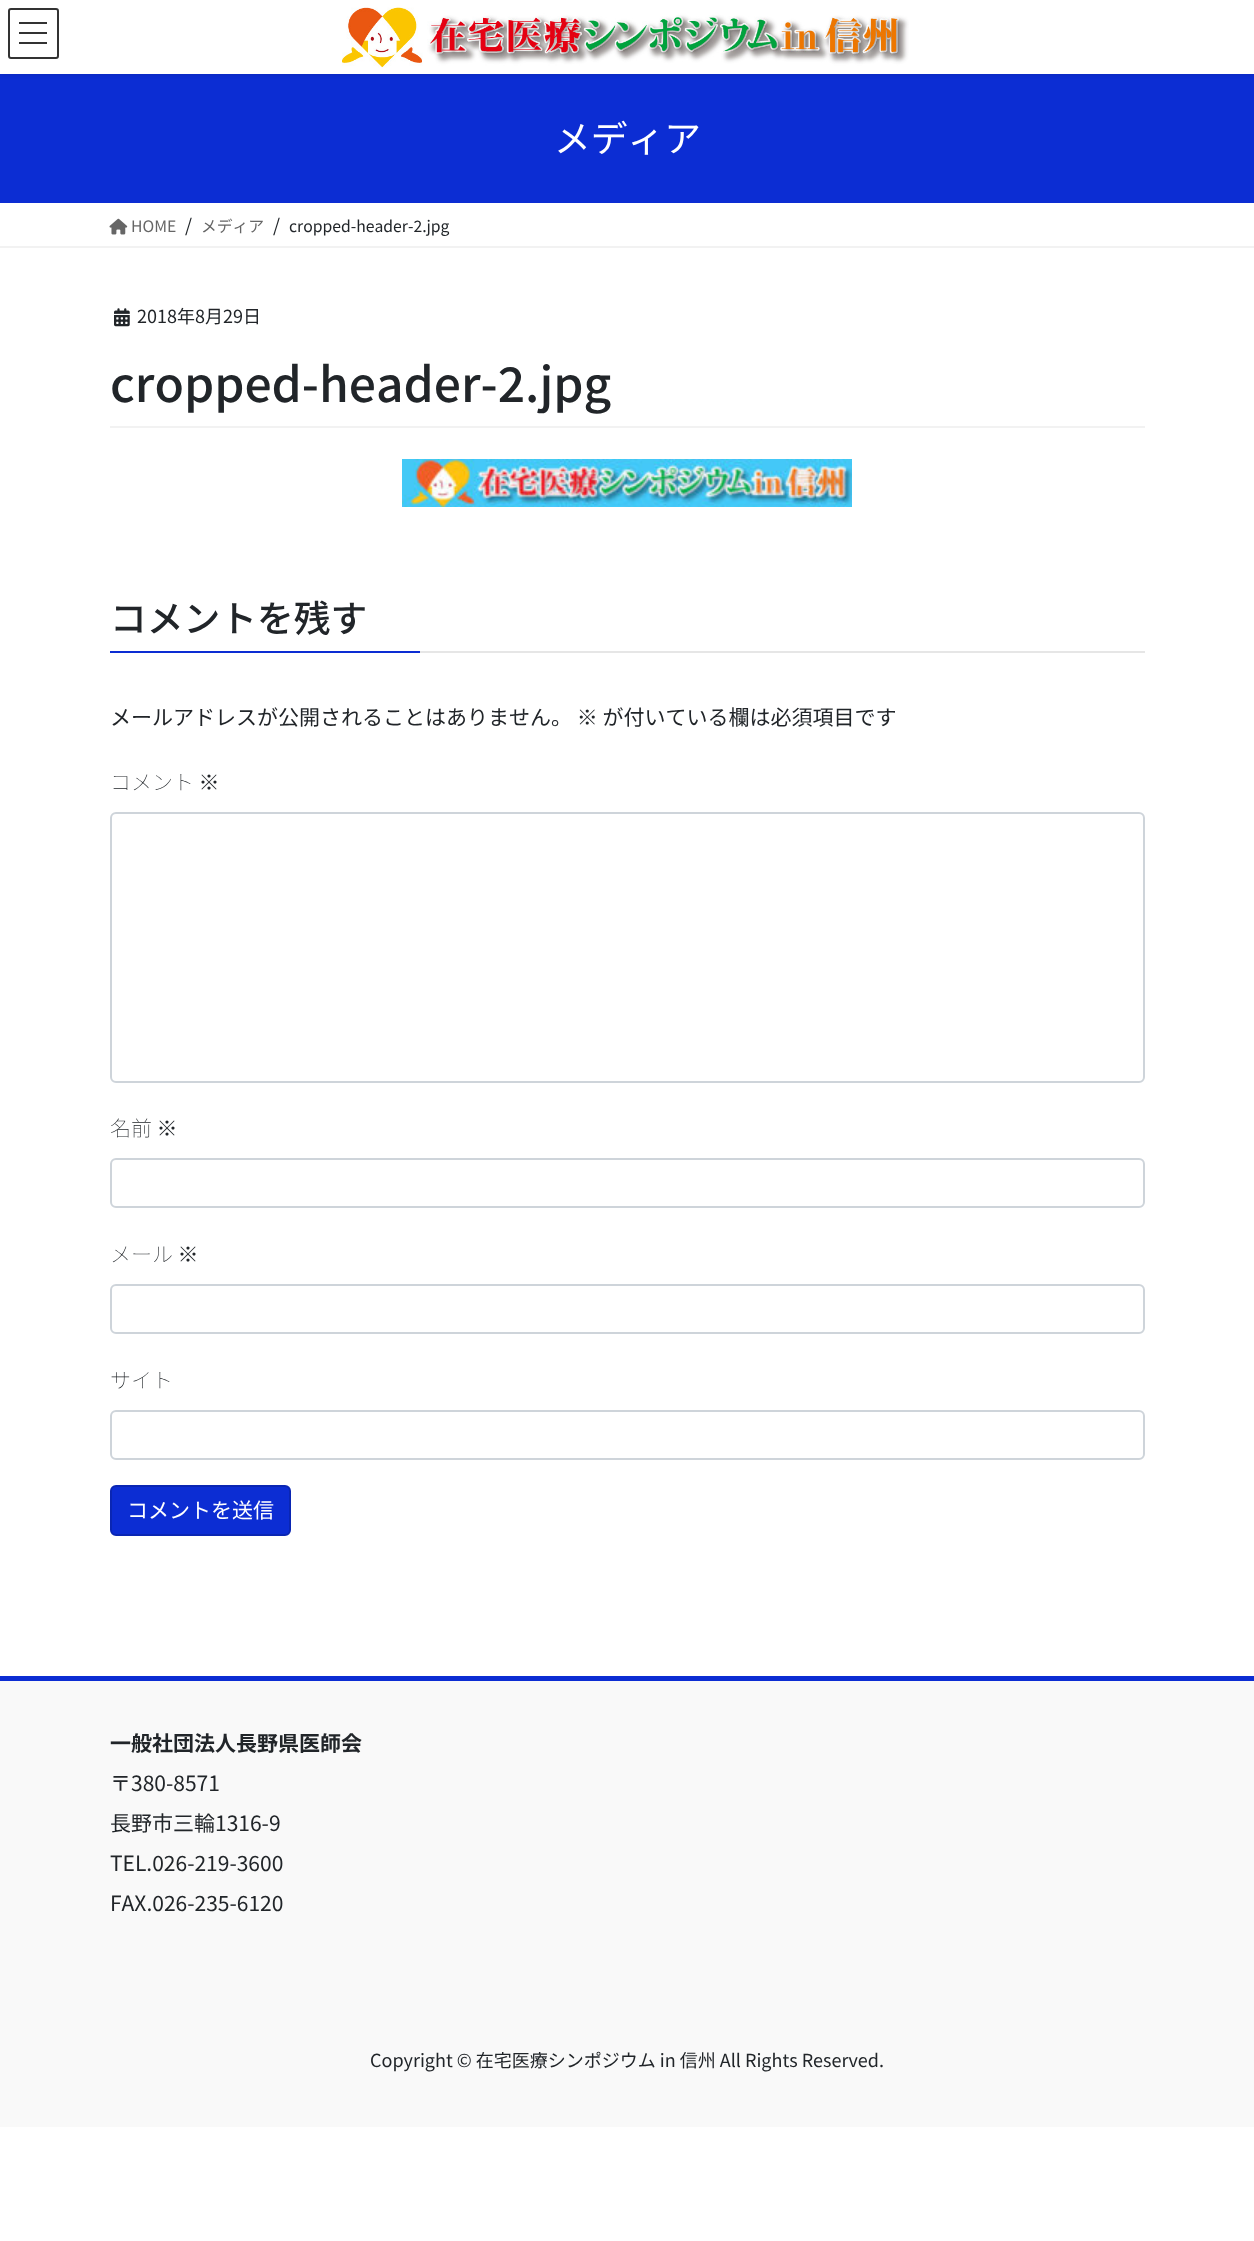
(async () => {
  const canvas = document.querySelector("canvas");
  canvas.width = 1254;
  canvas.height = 2241;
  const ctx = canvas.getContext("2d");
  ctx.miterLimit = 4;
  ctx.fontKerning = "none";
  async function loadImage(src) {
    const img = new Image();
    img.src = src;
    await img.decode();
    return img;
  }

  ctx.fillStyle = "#ffffff";
  ctx.fillRect(0, 0, 1254, 2241);
  ctx.fillStyle = "#0c2dd3";
  ctx.fillRect(0, 74, 1254, 129);
  ctx.fillStyle = "rgba(0, 0, 0, 0.1)";
  ctx.filter = "blur(2px)";
  ctx.beginPath();
  ctx.rect(0, 2, 1254, 73);
  ctx.fill();
  ctx.filter = "none";
  ctx.fillStyle = "#ffffff";
  ctx.fillRect(0, 0, 1254, 74);
  ctx.drawImage(await loadImage("img/1.png"), 342, 7, 567, 61);
  for (const [x, y, w, h, color] of [
    [19, 22, 28, 2, "#333333"],
    [19, 32, 28, 2, "#333333"],
    [19, 42, 28, 2, "#333333"],
  ]) {
    ctx.fillStyle = color;
    ctx.fillRect(x, y, w, h);
  }
  ctx.beginPath();
  ctx.roundRect(9, 9, 49, 49, 2);
  ctx.strokeStyle = "#333333";
  ctx.lineWidth = 2;
  ctx.stroke();
  ctx.fillStyle = "#f2f2f2";
  ctx.fillRect(0, 246, 1254, 2);
  ctx.drawImage(await loadImage("img/2.png"), 109, 218, 19, 17);
  ctx.fillRect(110, 426, 1035, 2);
  ctx.drawImage(await loadImage("img/3.png"), 114, 308, 16, 19);
  ctx.drawImage(await loadImage("img/4.png"), 402, 459, 450, 48);
  ctx.fillStyle = "#e6e6e6";
  ctx.fillRect(420, 651, 725, 2);
  ctx.fillStyle = "#0c2dd3";
  ctx.fillRect(110, 651, 310, 2);
  ctx.beginPath();
  ctx.roundRect(111, 813, 1033, 269, 5);
  ctx.strokeStyle = "#ced4da";
  ctx.stroke();
  ctx.beginPath();
  ctx.roundRect(111, 1159, 1033, 48, 5);
  ctx.stroke();
  ctx.beginPath();
  ctx.roundRect(111, 1285, 1033, 48, 5);
  ctx.stroke();
  ctx.beginPath();
  ctx.roundRect(111, 1411, 1033, 48, 5);
  ctx.stroke();
  ctx.beginPath();
  ctx.roundRect(111, 1486, 179, 49, 5);
  ctx.fill();
  ctx.strokeStyle = "#0a26b3";
  ctx.stroke();
  ctx.fillStyle = "#f9f9f9";
  ctx.fillRect(0, 1681, 1254, 446);
  ctx.fillStyle = "#0c2dd3";
  ctx.fillRect(0, 1676, 1254, 5);
  ctx.font = "36.75px Noto Sans JP";
  ctx.fillStyle = "#ffffff";
  ctx.fillText("メディア", 554, 152);
  ctx.font = "15.75px Noto Sans JP";
  ctx.fillStyle = "#666666";
  ctx.fillText("HOME", 131, 232);
  ctx.font = "18px Noto Sans JP";
  ctx.fillStyle = "#212529";
  ctx.fillText("/", 185, 232);
  ctx.font = "15.75px Noto Sans JP";
  ctx.fillStyle = "#666666";
  ctx.fillText("メディア", 201, 232);
  ctx.font = "18px Noto Sans JP";
  ctx.fillStyle = "#212529";
  ctx.fillText("/", 273, 232);
  ctx.font = "15.75px Noto Sans JP";
  ctx.fillText("cropped-header-2.jpg", 289, 232);
  ctx.font = "18px Noto Sans JP";
  ctx.fillText("2018年8月29日", 137, 323);
  ctx.font = "500 48px Noto Sans JP";
  ctx.fillText("cropped-header-2.jpg", 110, 402);
  ctx.font = "500 36.75px Noto Sans JP";
  ctx.fillText("コメントを残す", 110, 632);
  ctx.font = "21px Noto Sans JP";
  ctx.fillText("メールアドレスが公開されることはありません。 ※ が付いている欄は必須項目です", 110, 725);
  ctx.font = "100 21px Noto Sans JP";
  for (const [text, x, y] of [
    ["コメント ※", 110, 790],
    ["名前 ※", 110, 1136],
    ["メール ※", 110, 1262],
    ["サイト", 110, 1388],
  ]) {
    ctx.fillText(text, x, y);
  }
  ctx.font = "21px Noto Sans JP";
  ctx.fillStyle = "#ffffff";
  ctx.fillText("コメントを送信", 127, 1518);
  ctx.font = "bold 21px Noto Sans JP";
  ctx.fillStyle = "#212529";
  ctx.fillText("一般社団法人長野県医師会", 110, 1751);
  ctx.font = "21px Noto Sans JP";
  for (const [text, x, y] of [
    ["〒380-8571", 110, 1791],
    ["長野市三輪1316-9", 110, 1831],
    ["TEL.026-219-3600", 110, 1871],
    ["FAX.026-235-6120", 110, 1911],
  ]) {
    ctx.fillText(text, x, y);
  }
  ctx.font = "18px Noto Sans JP";
  ctx.fillText("Copyright © 在宅医療シンポジウム in 信州 All Rights Reserved.", 370, 2067);
})();
